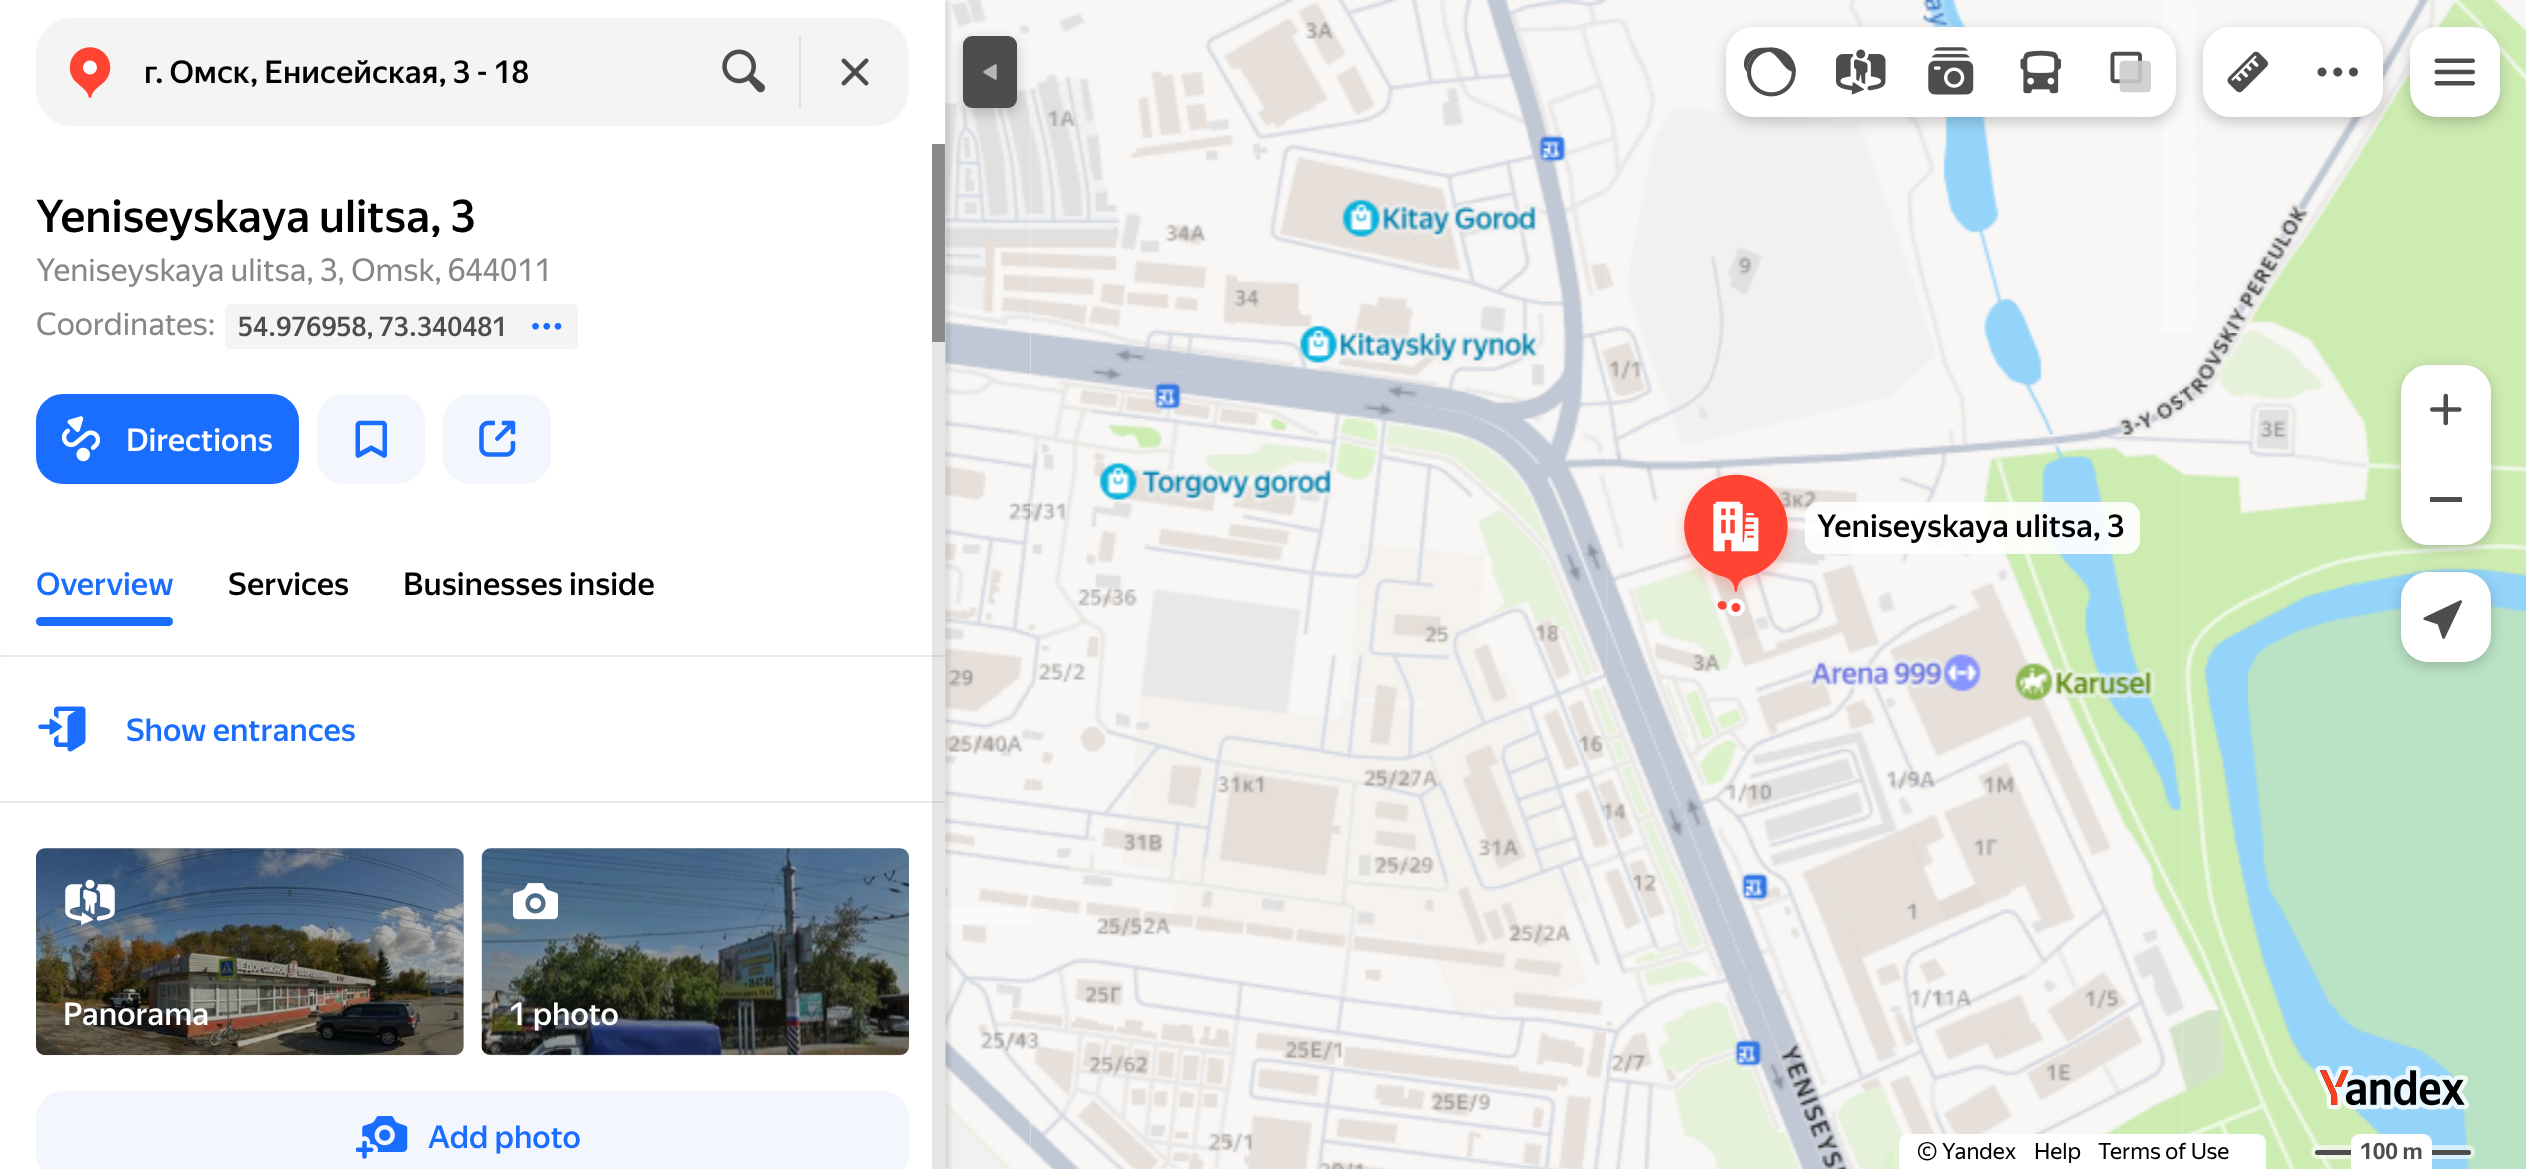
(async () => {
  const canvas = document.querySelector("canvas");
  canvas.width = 2526;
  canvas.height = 1169;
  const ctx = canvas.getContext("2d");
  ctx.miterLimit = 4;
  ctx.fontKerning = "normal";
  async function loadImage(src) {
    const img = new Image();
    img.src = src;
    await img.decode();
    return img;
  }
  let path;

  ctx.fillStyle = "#ffffff";
  ctx.fillRect(0, 0, 2526, 1169);
  ctx.drawImage(await loadImage("img/1.png"), 945, 0, 1249, 1169);
  ctx.drawImage(await loadImage("img/27.png"), 945, 0, 86, 333);
  ctx.drawImage(await loadImage("img/31.png"), 945, 333, 86, 575);
  ctx.drawImage(await loadImage("img/35.png"), 945, 924, 86, 245);
  ctx.fillStyle = "rgba(0, 0, 0, 0.1)";
  ctx.filter = "blur(2px)";
  ctx.beginPath();
  ctx.rect(5, 0, 945, 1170);
  ctx.fill();
  ctx.filter = "none";
  ctx.drawImage(await loadImage("img/28.png"), 1030, 0, 577, 333);
  ctx.fillStyle = "rgba(0, 0, 0, 0.2)";
  ctx.filter = "blur(7px)";
  ctx.beginPath();
  ctx.roundRect(963, 41, 54, 72, 9);
  ctx.fill();
  ctx.filter = "none";
  ctx.fillStyle = "#ffffff";
  ctx.fillRect(2, 0, 943, 1169);
  ctx.fillStyle = "#f4f4f4";
  ctx.beginPath();
  ctx.roundRect(36, 18, 873, 108, 36);
  ctx.fill();
  ctx.drawImage(await loadImage("img/2.png"), 69, 47, 42, 51);
  ctx.drawImage(await loadImage("img/3.png"), 722, 49, 43, 44);
  ctx.fillStyle = "#e0e0e0";
  ctx.fillRect(799, 36, 2, 72);
  ctx.drawImage(await loadImage("img/4.png"), 841, 58, 28, 28);
  ctx.drawImage(await loadImage("img/29.png"), 1606, 0, 556, 333);
  ctx.drawImage(await loadImage("img/30.png"), 2194, 0, 332, 333);
  ctx.fillStyle = "rgba(0, 0, 0, 0.2)";
  ctx.filter = "blur(7px)";
  ctx.beginPath();
  ctx.roundRect(1726, 32, 450, 90, 27);
  ctx.fill();
  ctx.filter = "none";
  ctx.fillStyle = "#ffffff";
  ctx.beginPath();
  ctx.roundRect(1726, 27, 90, 90, [27, 0, 0, 27]);
  ctx.fill();
  ctx.drawImage(await loadImage("img/5.png"), 1743, 47, 53, 50);
  ctx.fillRect(1816, 27, 270, 90);
  ctx.drawImage(await loadImage("img/6.png"), 1836, 49, 50, 46);
  ctx.beginPath();
  ctx.roundRect(2086, 27, 90, 90, [0, 27, 27, 0]);
  ctx.fill();
  ctx.drawImage(await loadImage("img/7.png"), 2110, 51, 41, 42);
  ctx.drawImage(await loadImage("img/8.png"), 1928, 47, 46, 48);
  ctx.drawImage(await loadImage("img/9.png"), 2020, 50, 41, 44);
  ctx.fillStyle = "rgba(0, 0, 0, 0.2)";
  ctx.filter = "blur(7px)";
  ctx.beginPath();
  ctx.roundRect(2203, 32, 180, 90, 27);
  ctx.fill();
  ctx.filter = "none";
  ctx.fillStyle = "#ffffff";
  ctx.beginPath();
  ctx.roundRect(2203, 27, 90, 90, [27, 0, 0, 27]);
  ctx.fill();
  ctx.drawImage(await loadImage("img/10.png"), 2227, 51, 41, 42);
  ctx.beginPath();
  ctx.roundRect(2293, 27, 90, 90, [0, 27, 27, 0]);
  ctx.fill();
  ctx.drawImage(await loadImage("img/11.png"), 2317, 67, 41, 10);
  ctx.fillStyle = "rgba(0, 0, 0, 0.2)";
  ctx.filter = "blur(7px)";
  ctx.beginPath();
  ctx.roundRect(2410, 32, 90, 90, 27);
  ctx.fill();
  ctx.filter = "none";
  ctx.fillStyle = "#ffffff";
  ctx.beginPath();
  ctx.roundRect(2410, 27, 90, 90, 27);
  ctx.fill();
  ctx.drawImage(await loadImage("img/12.png"), 2434, 58, 41, 28);
  ctx.drawImage(await loadImage("img/32.png"), 1030, 333, 577, 576);
  ctx.drawImage(await loadImage("img/33.png"), 1606, 333, 577, 576);
  ctx.drawImage(await loadImage("img/34.png"), 2182, 333, 344, 576);
  ctx.fillStyle = "rgba(0, 0, 0, 0.2)";
  ctx.filter = "blur(7px)";
  ctx.beginPath();
  ctx.roundRect(2401, 369, 90, 180, 27);
  ctx.fill();
  ctx.filter = "none";
  ctx.fillStyle = "#ffffff";
  ctx.beginPath();
  ctx.roundRect(2401, 365, 90, 90, [27, 27, 0, 0]);
  ctx.fill();
  ctx.drawImage(await loadImage("img/13.png"), 2430, 393, 32, 33);
  ctx.beginPath();
  ctx.roundRect(2401, 455, 90, 90, [0, 0, 27, 27]);
  ctx.fill();
  ctx.fillStyle = "#4d4d4d";
  ctx.fillRect(2430, 497, 32, 5);
  ctx.fillStyle = "rgba(0, 0, 0, 0.2)";
  ctx.filter = "blur(7px)";
  ctx.beginPath();
  ctx.roundRect(2401, 576, 90, 90, 27);
  ctx.fill();
  ctx.filter = "none";
  ctx.fillStyle = "#ffffff";
  ctx.beginPath();
  ctx.roundRect(2401, 572, 90, 90, 27);
  ctx.fill();
  ctx.drawImage(await loadImage("img/14.png"), 2423, 600, 39, 39);
  ctx.fillStyle = "#4d4d4d";
  ctx.beginPath();
  ctx.roundRect(963, 36, 54, 72, 9);
  ctx.fill();
  ctx.drawImage(await loadImage("img/15.png"), 983, 64, 14, 16);
  ctx.fillStyle = "#f4f4f4";
  ctx.beginPath();
  ctx.roundRect(225, 304, 353, 45, 5);
  ctx.fill();
  ctx.drawImage(await loadImage("img/16.png"), 532, 322, 30, 8);
  ctx.fillStyle = "#196dff";
  ctx.beginPath();
  ctx.roundRect(36, 394, 263, 90, 27);
  ctx.fill();
  ctx.drawImage(await loadImage("img/17.png"), 61, 416, 40, 46);
  ctx.fillStyle = "#f3f6fc";
  ctx.beginPath();
  ctx.roundRect(317, 394, 108, 90, 27);
  ctx.fill();
  ctx.drawImage(await loadImage("img/18.png"), 355, 420, 32, 38);
  ctx.beginPath();
  ctx.roundRect(443, 394, 108, 90, 27);
  ctx.fill();
  ctx.drawImage(await loadImage("img/19.png"), 479, 420, 37, 37);
  ctx.fillStyle = "#196dff";
  ctx.beginPath();
  ctx.roundRect(36, 617, 137, 9, 4.5);
  ctx.fill();
  ctx.fillStyle = "#ebebeb";
  ctx.fillRect(0, 655, 945, 2);
  ctx.fillRect(0, 801, 945, 2);
  ctx.drawImage(await loadImage("img/20.png"), 38, 706, 48, 46);
  ctx.drawImage(await loadImage("img/21.png"), 36, 848, 428, 208);
  ctx.fillStyle = "rgba(0, 0, 0, 0.3)";
  ctx.beginPath();
  ctx.roundRect(36, 848, 428, 207, 9);
  ctx.fill();
  ctx.drawImage(await loadImage("img/22.png"), 65, 879, 50, 46);
  ctx.drawImage(await loadImage("img/23.png"), 481, 848, 428, 208);
  ctx.beginPath();
  ctx.roundRect(482, 848, 427, 207, 9);
  ctx.fill();
  ctx.drawImage(await loadImage("img/24.png"), 513, 883, 45, 37);
  ctx.fillStyle = "#f3f6fc";
  ctx.beginPath();
  ctx.roundRect(36, 1091, 873, 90, 27);
  ctx.fill();
  ctx.drawImage(await loadImage("img/25.png"), 356, 1116, 52, 43);
  ctx.fillStyle = "#8a8a8a";
  ctx.fillRect(932, 144, 13, 198);
  ctx.fillStyle = "rgba(0, 0, 0, 0.1)";
  ctx.fillRect(932, 342, 13, 827);
  ctx.drawImage(await loadImage("img/36.png"), 1030, 909, 577, 260);
  ctx.drawImage(await loadImage("img/37.png"), 1606, 909, 577, 260);
  ctx.drawImage(await loadImage("img/38.png"), 2182, 909, 344, 260);
  ctx.drawImage(await loadImage("img/26.png"), 2315, 1065, 154, 45);
  ctx.fillStyle = "#ffffff";
  path = new Path2D("M1908 1134H2257C2262 1134 2266 1138 2266 1143V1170H1899V1143C1899 1138 1903 1134 1908 1134Z");
  ctx.fill(path);
  ctx.fillStyle = "rgba(255, 255, 255, 0.6)";
  ctx.beginPath();
  ctx.roundRect(2311, 1145, 164, 14, 7);
  ctx.fill();
  ctx.fillStyle = "#4d4d4d";
  ctx.beginPath();
  ctx.roundRect(2315, 1150, 156, 5, 2.5);
  ctx.fill();
  ctx.fillStyle = "#ffffff";
  path = new Path2D("M2360 1134H2423C2428 1134 2432 1138 2432 1143V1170H2351V1143C2351 1138 2355 1134 2360 1134Z");
  ctx.fill(path);
  ctx.fillStyle = "#ff4433";
  path = new Path2D("M1718 606.5C1716 601 1724.5 598.5 1726.5 604C1728.5 609.5 1720 612 1718 606.5Z");
  ctx.fill(path);
  ctx.drawImage(await loadImage("img/39.png"), 1675, 471, 121, 146);
  ctx.drawImage(await loadImage("img/40.png"), 1713, 501, 46, 51);
  ctx.fillStyle = "rgba(255, 255, 255, 0.9)";
  ctx.beginPath();
  ctx.roundRect(1805, 502, 335, 52, 14);
  ctx.fill();
  ctx.font = "500 31.5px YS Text";
  ctx.fillStyle = "#000000";
  ctx.fillText("г. Омск, Енисейская, 3 - 18", 144, 83);
  ctx.font = "500 45px YS Text";
  ctx.fillText("Yeniseyskaya ulitsa, 3", 36, 232);
  ctx.font = "31.5px YS Text";
  ctx.fillStyle = "#878787";
  ctx.fillText("Yeniseyskaya ulitsa, 3, Omsk, 644011", 36, 281);
  ctx.fillText("Coordinates:", 36, 335);
  ctx.font = "500 27px YS Text";
  ctx.fillStyle = "#4d4d4d";
  ctx.fillText("54.976958, 73.340481", 238, 336);
  ctx.font = "500 31.5px YS Text";
  ctx.fillStyle = "#ffffff";
  ctx.fillText("Directions", 126, 451);
  ctx.fillStyle = "#196dff";
  ctx.fillText("Overview", 36, 595);
  ctx.fillStyle = "#000000";
  ctx.fillText("Services", 228, 595);
  ctx.fillText("Businesses inside", 403, 595);
  ctx.fillStyle = "#196dff";
  ctx.fillText("Show entrances", 126, 741);
  ctx.fillStyle = "#ffffff";
  ctx.fillText("Panorama", 63, 1025);
  ctx.fillText("1 photo", 509, 1025);
  ctx.fillStyle = "#196dff";
  ctx.fillText("Add photo", 428, 1148);
  ctx.font = "22.5px YS Text";
  ctx.fillStyle = "#000000";
  for (const [text, x, y] of [
    ["© Yandex", 1917, 1159],
    ["Help", 2034, 1159],
    ["Terms of Use", 2098, 1159],
  ]) {
    ctx.fillText(text, x, y);
  }
  ctx.font = "bold 22.5px YS Text";
  ctx.fillStyle = "#4d4d4d";
  ctx.fillText("100 m", 2360, 1159);
  ctx.font = "500 31.5px YS Text";
  ctx.fillStyle = "#000000";
  ctx.fillText("Yeniseyskaya ulitsa, 3", 1817, 537);
})();
